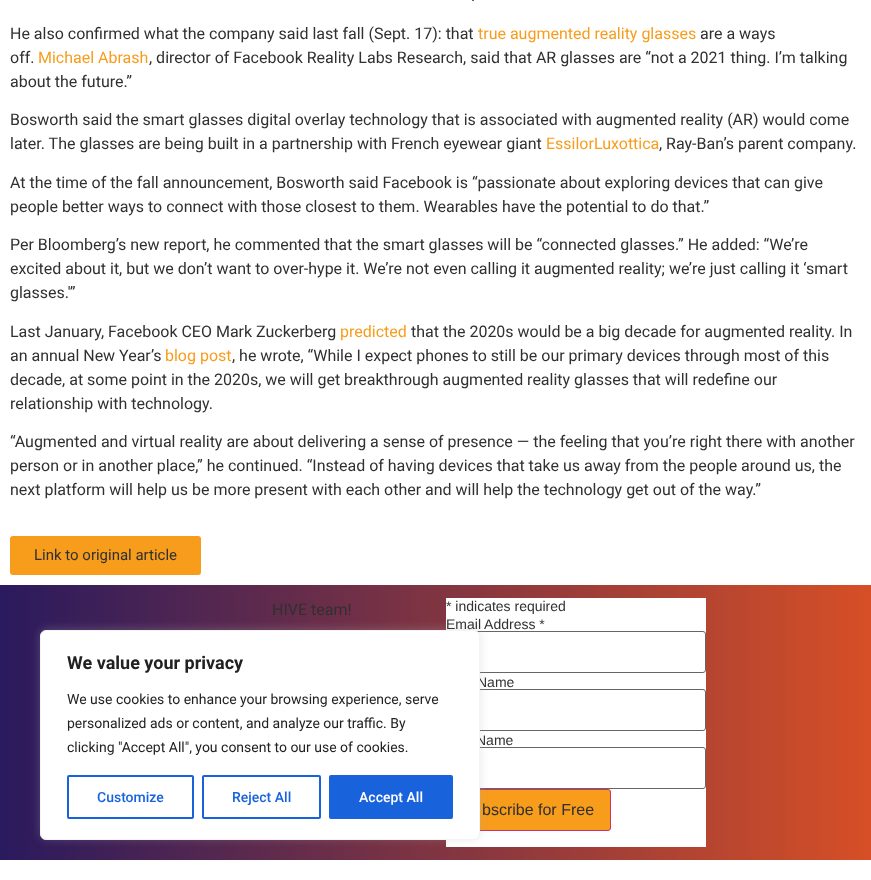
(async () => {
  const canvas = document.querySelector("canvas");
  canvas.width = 871;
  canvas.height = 880;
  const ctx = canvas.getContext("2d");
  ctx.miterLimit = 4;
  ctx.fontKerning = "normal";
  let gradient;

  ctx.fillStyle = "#ffffff";
  ctx.fillRect(0, 0, 871, 880);
  ctx.fillStyle = "#f79c1b";
  ctx.beginPath();
  ctx.roundRect(10, 536, 191, 39, 3);
  ctx.fill();
  gradient = ctx.createLinearGradient(0, 723, 871, 723);
  gradient.addColorStop(0, "#2a1a5e");
  gradient.addColorStop(1, "#d64f26");
  ctx.fillStyle = gradient;
  ctx.fillRect(0, 585, 871, 275);
  ctx.fillStyle = "#ffffff";
  ctx.fillRect(446, 598, 260, 249);
  ctx.beginPath();
  ctx.roundRect(446.5, 631.5, 259, 41, 2.5);
  ctx.strokeStyle = "#666666";
  ctx.stroke();
  ctx.beginPath();
  ctx.roundRect(446.5, 689.5, 259, 41, 2.5);
  ctx.stroke();
  ctx.beginPath();
  ctx.roundRect(446.5, 747.5, 259, 41, 2.5);
  ctx.stroke();
  ctx.fillStyle = "#f79c1b";
  ctx.beginPath();
  ctx.roundRect(446.5, 789.5, 164, 41, 2.5);
  ctx.fill();
  ctx.strokeStyle = "#cc3366";
  ctx.stroke();
  ctx.fillStyle = "rgba(172, 171, 171, 0.3)";
  ctx.filter = "blur(5px)";
  ctx.beginPath();
  ctx.roundRect(40, 629, 440, 210, 6);
  ctx.fill();
  ctx.filter = "none";
  ctx.font = "16px Roboto";
  ctx.fillStyle = "#303030";
  ctx.fillText(".", 471, 1);
  ctx.fillText("He also confirmed what the company said last fall (Sept. 17): that", 10, 39);
  ctx.fillStyle = "#f79c1b";
  ctx.fillText("true augmented reality glasses", 478, 39);
  ctx.fillStyle = "#303030";
  ctx.fillText("are a ways", 700, 39);
  ctx.fillText("off.", 10, 63);
  ctx.fillStyle = "#f79c1b";
  ctx.fillText("Michael Abrash", 38, 63);
  ctx.fillStyle = "#303030";
  for (const [text, x, y] of [
    [", director of Facebook Reality Labs Research, said that AR glasses are “not a 2021 thing. I’m talking", 149, 63],
    ["about the future.”", 10, 87],
    ["Bosworth said the smart glasses digital overlay technology that is associated with augmented reality (AR) would come", 10, 125],
    ["later. The glasses are being built in a partnership with French eyewear giant", 10, 149],
  ]) {
    ctx.fillText(text, x, y);
  }
  ctx.fillStyle = "#f79c1b";
  ctx.fillText("EssilorLuxottica", 546, 149);
  ctx.fillStyle = "#303030";
  for (const [text, x, y] of [
    [", Ray-Ban’s parent company.", 659, 149],
    ["At the time of the fall announcement, Bosworth said Facebook is “passionate about exploring devices that can give", 10, 188],
    ["people better ways to connect with those closest to them. Wearables have the potential to do that.”", 10, 212],
    ["Per Bloomberg’s new report, he commented that the smart glasses will be “connected glasses.” He added: “We’re", 10, 250],
    ["excited about it, but we don’t want to over-hype it. We’re not even calling it augmented reality; we’re just calling it ‘smart", 10, 274],
    ["glasses.'”", 10, 298],
    ["Last January, Facebook CEO Mark Zuckerberg", 10, 337],
  ]) {
    ctx.fillText(text, x, y);
  }
  ctx.fillStyle = "#f79c1b";
  ctx.fillText("predicted", 340, 337);
  ctx.fillStyle = "#303030";
  ctx.fillText("that the 2020s would be a big decade for augmented reality. In", 411, 337);
  ctx.fillText("an annual New Year’s", 10, 361);
  ctx.fillStyle = "#f79c1b";
  ctx.fillText("blog post", 165, 361);
  ctx.fillStyle = "#303030";
  for (const [text, x, y] of [
    [", he wrote, “While I expect phones to still be our primary devices through most of this", 232, 361],
    ["decade, at some point in the 2020s, we will get breakthrough augmented reality glasses that will redefine our", 10, 385],
    ["relationship with technology.", 10, 409],
    ["“Augmented and virtual reality are about delivering a sense of presence — the feeling that you’re right there with another", 10, 447],
    ["person or in another place,” he continued. “Instead of having devices that take us away from the people around us, the", 10, 471],
    ["next platform will help us be more present with each other and will help the technology get out of the way.”", 10, 495],
  ]) {
    ctx.fillText(text, x, y);
  }
  ctx.font = "15px Roboto";
  ctx.fillText("Link to original article", 34, 560);
  ctx.font = "16px Roboto";
  ctx.fillText("HIVE team!", 272, 615);
  ctx.font = "14px Liberation Sans";
  for (const [text, x, y] of [
    ["* indicates required", 446, 611],
    ["Email Address *", 446, 629],
    ["Name", 477, 687],
    ["Name", 476, 745],
  ]) {
    ctx.fillText(text, x, y);
  }
  ctx.font = "16px Liberation Sans";
  ctx.fillText("bscribe for Free", 482, 815);
  ctx.fillStyle = "#ffffff";
  ctx.beginPath();
  ctx.roundRect(40.5, 630.5, 439, 209, 5.5);
  ctx.fill();
  ctx.strokeStyle = "#f4f4f4";
  ctx.stroke();
  ctx.font = "bold 18px Roboto";
  ctx.fillStyle = "#212121";
  ctx.fillText("We value your privacy", 67, 669);
  ctx.font = "14px Roboto";
  for (const [text, x, y] of [
    ["We use cookies to enhance your browsing experience, serve", 67, 704],
    ["personalized ads or content, and analyze our traffic. By", 67, 728],
    ["clicking \"Accept All\", you consent to our use of cookies.", 67, 752],
  ]) {
    ctx.fillText(text, x, y);
  }
  ctx.beginPath();
  ctx.roundRect(68, 776, 125, 42, 1);
  ctx.strokeStyle = "#1863dc";
  ctx.lineWidth = 2;
  ctx.stroke();
  ctx.font = "500 14px Roboto";
  ctx.fillStyle = "#1863dc";
  ctx.fillText("Customize", 97, 802);
  ctx.beginPath();
  ctx.roundRect(203, 776, 117, 42, 1);
  ctx.stroke();
  ctx.fillText("Reject All", 232, 802);
  ctx.beginPath();
  ctx.roundRect(330, 776, 122, 42, 1);
  ctx.fill();
  ctx.stroke();
  ctx.fillStyle = "#ffffff";
  ctx.fillText("Accept All", 359, 802);
})();
